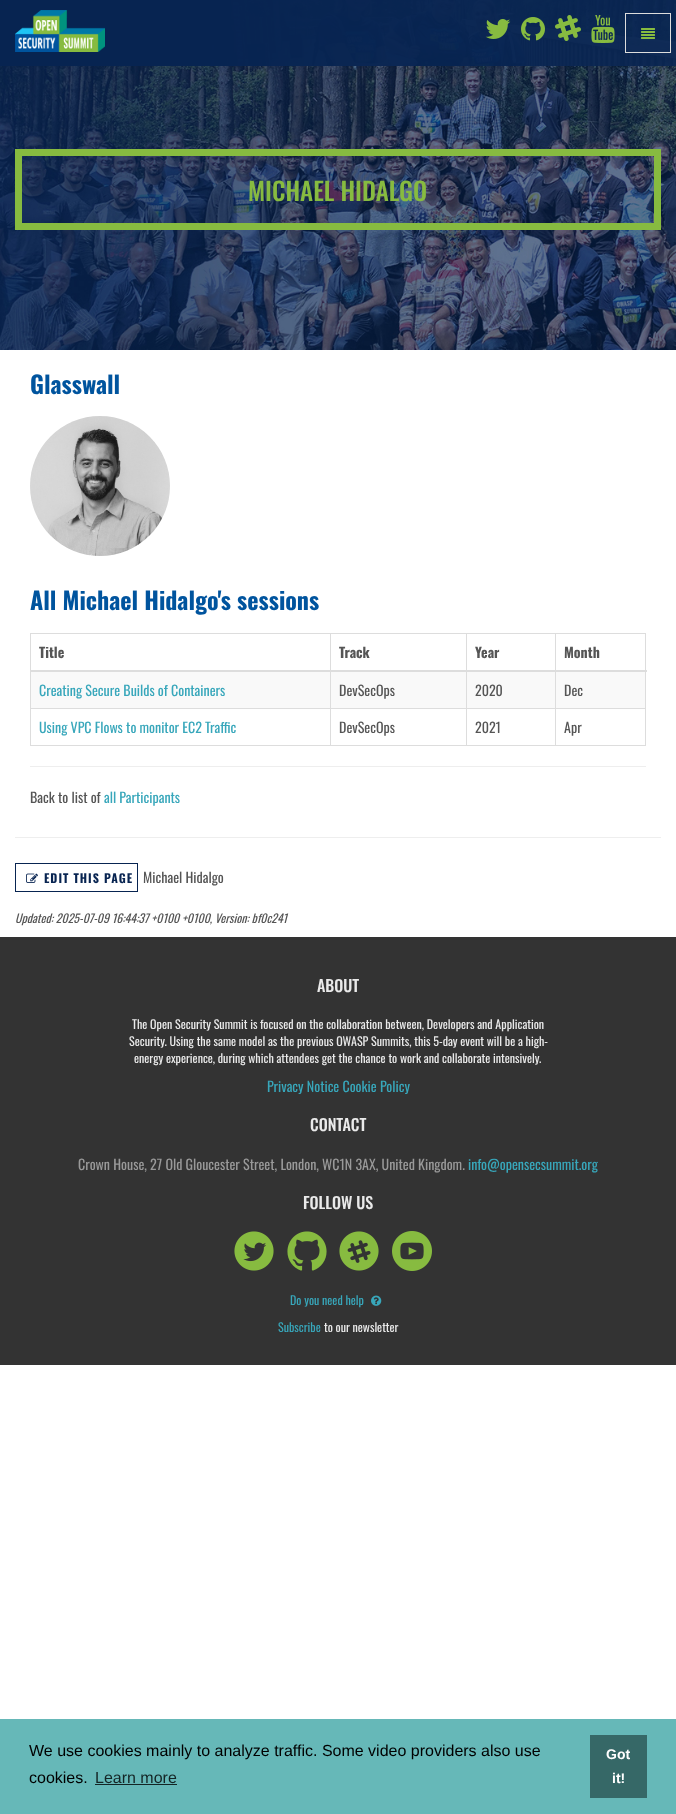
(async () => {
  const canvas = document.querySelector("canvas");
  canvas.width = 676;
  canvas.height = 1814;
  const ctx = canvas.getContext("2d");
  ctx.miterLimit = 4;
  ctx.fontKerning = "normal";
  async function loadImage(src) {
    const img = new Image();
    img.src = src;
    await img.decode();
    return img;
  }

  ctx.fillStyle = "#ffffff";
  ctx.fillRect(0, 0, 676, 1814);
  ctx.drawImage(await loadImage("img/1.png"), 0, 0, 676, 66);
  ctx.drawImage(await loadImage("img/2.png"), 15, 10, 90, 42);
  ctx.drawImage(await loadImage("img/3.png"), 485, 19, 26, 20);
  ctx.drawImage(await loadImage("img/4.png"), 521, 17, 24, 24);
  ctx.drawImage(await loadImage("img/5.png"), 555, 15, 26, 26);
  ctx.drawImage(await loadImage("img/6.png"), 591, 15, 24, 28);
  ctx.strokeStyle = "#dddddd";
  ctx.strokeRect(625.5, 13.5, 45, 39);
  ctx.drawImage(await loadImage("img/7.png"), 641, 28, 14, 11);
  ctx.drawImage(await loadImage("img/8.png"), 0, 66, 676, 284);
  ctx.strokeStyle = "#87bb40";
  ctx.lineWidth = 7;
  ctx.strokeRect(18.5, 152.5, 639, 74);
  ctx.drawImage(await loadImage("img/9.png"), 30, 416, 140, 140);
  for (const [x, y, w, h, color] of [
    [30, 633, 616, 1, "#dddddd"],
    [645, 633, 1, 113, "#dddddd"],
    [30, 745, 616, 1, "#dddddd"],
    [30, 633, 1, 113, "#dddddd"],
    [31, 672, 614, 36, "#f9f9f9"],
    [555, 708, 91, 1, "#dddddd"],
    [555, 708, 1, 38, "#dddddd"],
    [466, 708, 90, 1, "#dddddd"],
    [466, 708, 1, 38, "#dddddd"],
    [330, 708, 137, 1, "#dddddd"],
    [330, 708, 1, 38, "#dddddd"],
    [30, 708, 301, 1, "#dddddd"],
    [330, 633, 1, 76, "#dddddd"],
    [466, 633, 1, 76, "#dddddd"],
    [555, 633, 1, 76, "#dddddd"],
    [30, 670, 617, 2, "#dddddd"],
    [30, 766, 616, 1, "#eeeeee"],
    [15, 837, 646, 1, "#eeeeee"],
  ]) {
    ctx.fillStyle = color;
    ctx.fillRect(x, y, w, h);
  }
  ctx.strokeStyle = "#082451";
  ctx.lineWidth = 1;
  ctx.strokeRect(15.5, 863.5, 122, 28);
  ctx.drawImage(await loadImage("img/10.png"), 26, 873, 12, 10);
  ctx.fillStyle = "#333333";
  ctx.fillRect(0, 937, 676, 428);
  ctx.drawImage(await loadImage("img/11.png"), 234, 1231, 40, 40);
  ctx.drawImage(await loadImage("img/12.png"), 287, 1231, 40, 40);
  ctx.drawImage(await loadImage("img/13.png"), 339, 1231, 40, 40);
  ctx.drawImage(await loadImage("img/14.png"), 392, 1231, 40, 40);
  ctx.drawImage(await loadImage("img/15.png"), 371, 1295, 11, 11);
  for (const [x, y, w, h, color] of [
    [0, 1719, 676, 95, "#66b8b8"],
    [95, 1784, 82, 1, "#142525"],
    [590, 1735, 57, 63, "#366867"],
  ]) {
    ctx.fillStyle = color;
    ctx.fillRect(x, y, w, h);
  }
  ctx.font = "500 25px Oswald";
  ctx.fillStyle = "#87bb40";
  ctx.fillText("MICHAEL HIDALGO", 248, 201);
  ctx.font = "bold 24px Oswald";
  ctx.fillStyle = "#00549e";
  ctx.fillText("Glasswall", 30, 394);
  ctx.fillText("All Michael Hidalgo's sessions", 30, 610);
  ctx.font = "bold 14px Oswald";
  ctx.fillStyle = "#555555";
  for (const [text, x, y] of [
    ["Title", 39, 658],
    ["Track", 339, 658],
    ["Year", 475, 658],
    ["Month", 564, 658],
  ]) {
    ctx.fillText(text, x, y);
  }
  ctx.font = "14px Oswald";
  ctx.fillStyle = "#38a7bb";
  ctx.fillText("Creating Secure Builds of Containers", 39, 696);
  ctx.fillStyle = "#555555";
  for (const [text, x, y] of [
    ["DevSecOps", 339, 696],
    ["2020", 475, 696],
    ["Dec", 564, 696],
  ]) {
    ctx.fillText(text, x, y);
  }
  ctx.fillStyle = "#38a7bb";
  ctx.fillText("Using VPC Flows to monitor EC2 Traffic", 39, 733);
  ctx.fillStyle = "#555555";
  for (const [text, x, y] of [
    ["DevSecOps", 339, 733],
    ["2021", 475, 733],
    ["Apr", 564, 733],
    ["Back to list of", 30, 803],
  ]) {
    ctx.fillText(text, x, y);
  }
  ctx.fillStyle = "#38a7bb";
  ctx.fillText("all Participants", 104, 803);
  ctx.letterSpacing = "1px";
  ctx.font = "bold 12px Oswald";
  ctx.fillStyle = "#082451";
  ctx.fillText("EDIT THIS PAGE", 44, 883);
  ctx.letterSpacing = "0px";
  ctx.font = "14px Oswald";
  ctx.fillStyle = "#555555";
  ctx.fillText("Michael Hidalgo", 143, 883);
  ctx.font = "italic 11.9px Oswald";
  ctx.fillText("Updated: 2025-07-09 16:44:37 +0100 +0100, Version: bf0c241", 15, 923);
  ctx.font = "500 16px Oswald";
  ctx.fillStyle = "#eaeaea";
  ctx.fillText("ABOUT", 317, 992);
  ctx.font = "12px Oswald";
  for (const [text, x, y] of [
    ["The Open Security Summit is focused on the collaboration between, Developers and Application", 132, 1029],
    ["Security. Using the same model as the previous OWASP Summits, this 5-day event will be a high-", 129, 1046],
    ["energy experience, during which attendees get the chance to work and collaborate intensively.", 134, 1063],
  ]) {
    ctx.fillText(text, x, y);
  }
  ctx.font = "14px Oswald";
  ctx.fillStyle = "#38a7bb";
  ctx.fillText("Privacy Notice Cookie Policy", 267, 1092);
  ctx.font = "500 16px Oswald";
  ctx.fillStyle = "#eaeaea";
  ctx.fillText("CONTACT", 310, 1131);
  ctx.font = "14px Oswald";
  ctx.fillStyle = "#999999";
  ctx.fillText("Crown House, 27 Old Gloucester Street, London, WC1N 3AX, United Kingdom.", 78, 1170);
  ctx.fillStyle = "#38a7bb";
  ctx.fillText("info@opensecsummit.org", 468, 1170);
  ctx.font = "500 16px Oswald";
  ctx.fillStyle = "#eaeaea";
  ctx.fillText("FOLLOW US", 303, 1209);
  ctx.font = "12px Oswald";
  ctx.fillStyle = "#38a7bb";
  ctx.fillText("Do you need help", 290, 1305);
  ctx.fillText("Subscribe", 278, 1332);
  ctx.fillStyle = "#eaeaea";
  ctx.fillText("to our newsletter", 324, 1332);
  ctx.font = "16px Liberation Sans";
  ctx.fillStyle = "#000000";
  ctx.fillText("We use cookies mainly to analyze traffic. Some video providers also use", 29, 1756);
  ctx.fillText("cookies.", 29, 1783);
  ctx.fillStyle = "#142525";
  ctx.fillText("Learn more", 95, 1783);
  ctx.font = "bold 14px Liberation Sans";
  ctx.fillStyle = "#ffffff";
  ctx.fillText("Got", 606, 1759);
  ctx.fillText("it!", 612, 1783);
})();
